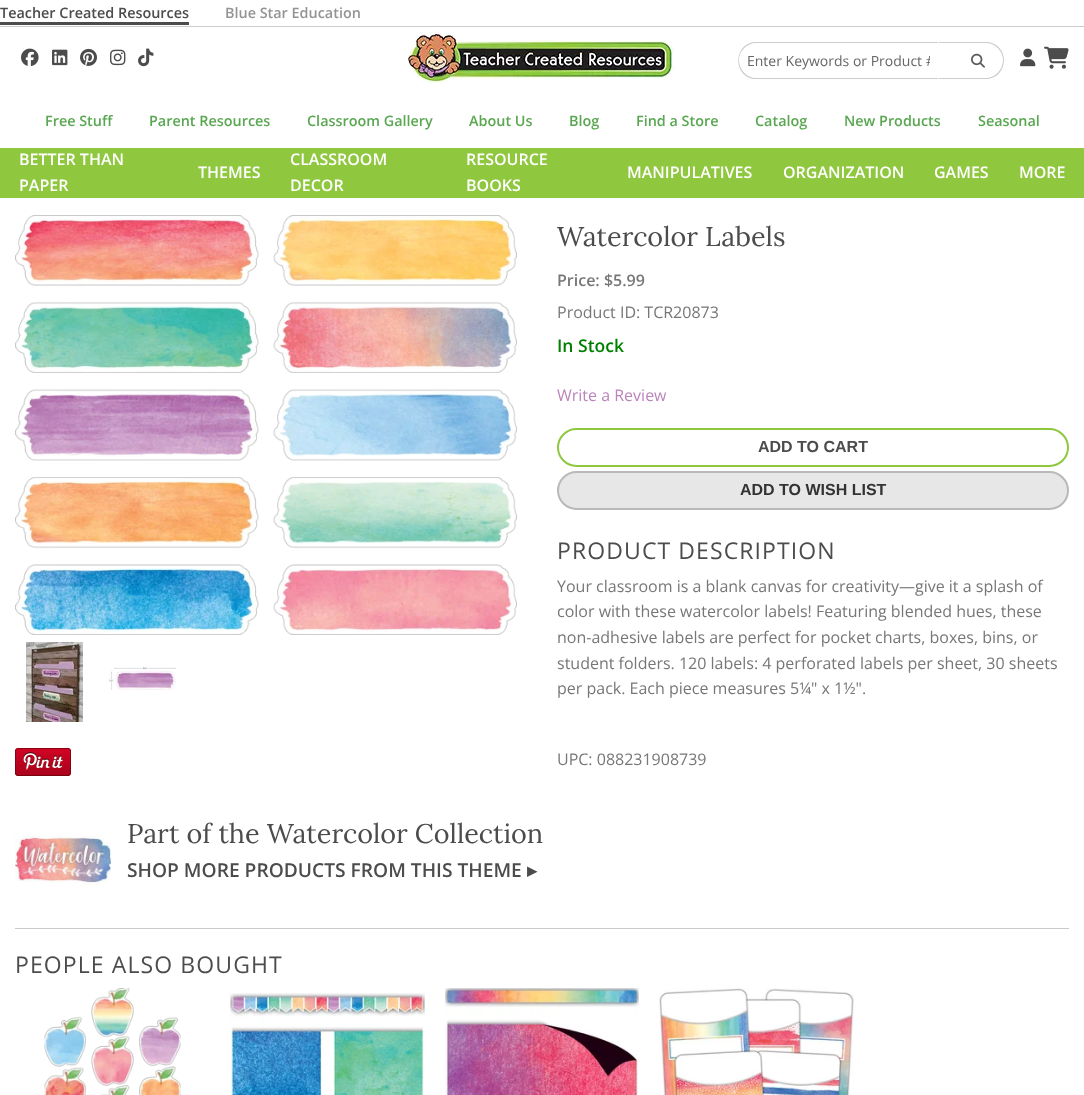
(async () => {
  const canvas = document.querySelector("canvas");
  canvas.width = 1084;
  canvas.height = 1095;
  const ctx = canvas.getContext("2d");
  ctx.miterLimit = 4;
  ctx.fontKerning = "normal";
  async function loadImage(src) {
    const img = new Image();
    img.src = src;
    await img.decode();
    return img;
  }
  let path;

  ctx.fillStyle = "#ffffff";
  ctx.fillRect(0, 0, 1084, 1095);
  ctx.fillStyle = "#cccccc";
  ctx.fillRect(0, 26, 1084, 1);
  ctx.fillStyle = "#4c4c4c";
  ctx.fillRect(0, 22, 189, 3);
  ctx.drawImage(await loadImage("img/1.png"), 21, 48, 18, 18);
  ctx.drawImage(await loadImage("img/2.png"), 52, 49, 16, 17);
  ctx.drawImage(await loadImage("img/3.png"), 80, 48, 17, 18);
  ctx.drawImage(await loadImage("img/4.png"), 110, 49, 16, 17);
  ctx.drawImage(await loadImage("img/5.png"), 138, 48, 16, 19);
  ctx.drawImage(await loadImage("img/6.png"), 408, 31, 267, 52);
  ctx.fillStyle = "#cccccc";
  path = new Path2D("M756 42H938V79H753C731 74 735 42 756 42ZM756 43H938V78H756C747 78 739 70 739 60C739 51 747 43 756 43Z");
  ctx.fill(path, "evenodd");
  path = new Path2D("M939 42H986C996 42 1004 50 1004 60C1004 71 996 79 986 79H939ZM939 43H986C995 43 1003 51 1003 60C1003 70 995 78 986 78H939Z");
  ctx.fill(path, "evenodd");
  ctx.drawImage(await loadImage("img/7.png"), 971, 53, 14, 15);
  ctx.drawImage(await loadImage("img/8.png"), 1020, 48, 16, 19);
  ctx.drawImage(await loadImage("img/9.png"), 1044, 46, 25, 23);
  ctx.fillStyle = "#8fc73e";
  ctx.fillRect(0, 148, 1084, 50);
  ctx.drawImage(await loadImage("img/10.png"), 15, 215, 502, 420);
  ctx.drawImage(await loadImage("img/11.png"), 26, 642, 57, 80);
  ctx.drawImage(await loadImage("img/12.png"), 109, 666, 67, 24);
  ctx.drawImage(await loadImage("img/13.png"), 15, 748, 56, 28);
  ctx.beginPath();
  ctx.roundRect(558, 429, 510, 37, 18.5);
  ctx.strokeStyle = "#8fc73e";
  ctx.lineWidth = 2;
  ctx.stroke();
  ctx.fillStyle = "#e7e7e7";
  ctx.beginPath();
  ctx.roundRect(558, 472, 510, 37, 18.5);
  ctx.fill();
  ctx.strokeStyle = "#b9b9b9";
  ctx.stroke();
  ctx.drawImage(await loadImage("img/14.png"), 15, 835, 96, 54);
  ctx.fillStyle = "#cacaca";
  ctx.fillRect(15, 928, 1054, 1);
  ctx.drawImage(await loadImage("img/15.png"), 44, 988, 137, 107);
  ctx.drawImage(await loadImage("img/16.png"), 230, 993, 195, 102);
  ctx.drawImage(await loadImage("img/17.png"), 445, 988, 194, 107);
  ctx.drawImage(await loadImage("img/18.png"), 659, 988, 195, 107);
  ctx.font = "600 14.4px Open Sans";
  ctx.fillStyle = "#4c4c4c";
  ctx.fillText("Teacher Created Resources", 0, 18);
  ctx.fillStyle = "#949494";
  ctx.fillText("Blue Star Education", 225, 18);
  ctx.save();
  ctx.beginPath();
  ctx.rect(747, 51, 183, 19);
  ctx.clip();
  ctx.font = "14px Open Sans";
  ctx.fillStyle = "#666666";
  ctx.fillText("Enter Keywords or Product #", 747, 66);
  ctx.restore();
  ctx.fillStyle = "#5aa751";
  for (const [text, x, y] of [
    ["Free Stuff", 45, 126],
    ["Parent Resources", 149, 126],
    ["Classroom Gallery", 307, 126],
    ["About Us", 469, 126],
    ["Blog", 569, 126],
    ["Find a Store", 636, 126],
    ["Catalog", 755, 126],
    ["New Products", 844, 126],
    ["Seasonal", 978, 126],
  ]) {
    ctx.fillText(text, x, y);
  }
  ctx.font = "600 16px Open Sans";
  ctx.fillStyle = "#ffffff";
  for (const [text, x, y] of [
    ["BETTER THAN", 19, 165],
    ["PAPER", 19, 191],
    ["THEMES", 198, 178],
    ["CLASSROOM", 290, 165],
    ["DECOR", 290, 191],
    ["RESOURCE", 466, 165],
    ["BOOKS", 466, 191],
    ["MANIPULATIVES", 627, 178],
    ["ORGANIZATION", 783, 178],
    ["GAMES", 934, 178],
    ["MORE", 1019, 178],
  ]) {
    ctx.fillText(text, x, y);
  }
  ctx.font = "27px Lora";
  ctx.fillStyle = "#4c4c4c";
  ctx.fillText("Watercolor Labels", 557, 246);
  ctx.font = "600 16px Open Sans";
  ctx.fillStyle = "#777777";
  ctx.fillText("Price: $5.99", 557, 286);
  ctx.font = "16px Open Sans";
  ctx.fillText("Product ID: TCR20873", 557, 318);
  ctx.font = "600 17.5px Open Sans";
  ctx.fillStyle = "#008000";
  ctx.fillText("In Stock", 557, 352);
  ctx.font = "16px Open Sans";
  ctx.fillStyle = "#bb84bb";
  ctx.fillText("Write a Review", 557, 401);
  ctx.font = "bold 16px Liberation Sans";
  ctx.fillStyle = "#4c4c4c";
  ctx.fillText("ADD TO CART", 758, 452);
  ctx.fillStyle = "#333333";
  ctx.fillText("ADD TO WISH LIST", 740, 495);
  ctx.letterSpacing = "1.1px";
  ctx.font = "23px Open Sans";
  ctx.fillStyle = "#4c4c4c";
  ctx.fillText("PRODUCT DESCRIPTION", 557, 559);
  ctx.letterSpacing = "0px";
  ctx.font = "16px Open Sans";
  ctx.fillStyle = "#777777";
  for (const [text, x, y] of [
    ["Your classroom is a blank canvas for creativity—give it a splash of", 557, 592],
    ["color with these watercolor labels! Featuring blended hues, these", 557, 617],
    ["non-adhesive labels are perfect for pocket charts, boxes, bins, or", 557, 643],
    ["student folders. 120 labels: 4 perforated labels per sheet, 30 sheets", 557, 669],
    ["per pack. Each piece measures 5¼\" x 1½\".", 557, 694],
    ["UPC: 088231908739", 557, 765],
  ]) {
    ctx.fillText(text, x, y);
  }
  ctx.font = "27px Lora";
  ctx.fillStyle = "#4c4c4c";
  ctx.fillText("Part of the Watercolor Collection", 127, 843);
  ctx.font = "600 19.2px Open Sans";
  ctx.fillText("SHOP MORE PRODUCTS FROM THIS THEME", 127, 877);
  ctx.font = "bold 19.2px DejaVu Sans";
  ctx.fillText("▸", 527, 877);
  ctx.letterSpacing = "1.1px";
  ctx.font = "23px Open Sans";
  ctx.fillText("PEOPLE ALSO BOUGHT", 15, 973);
})();
